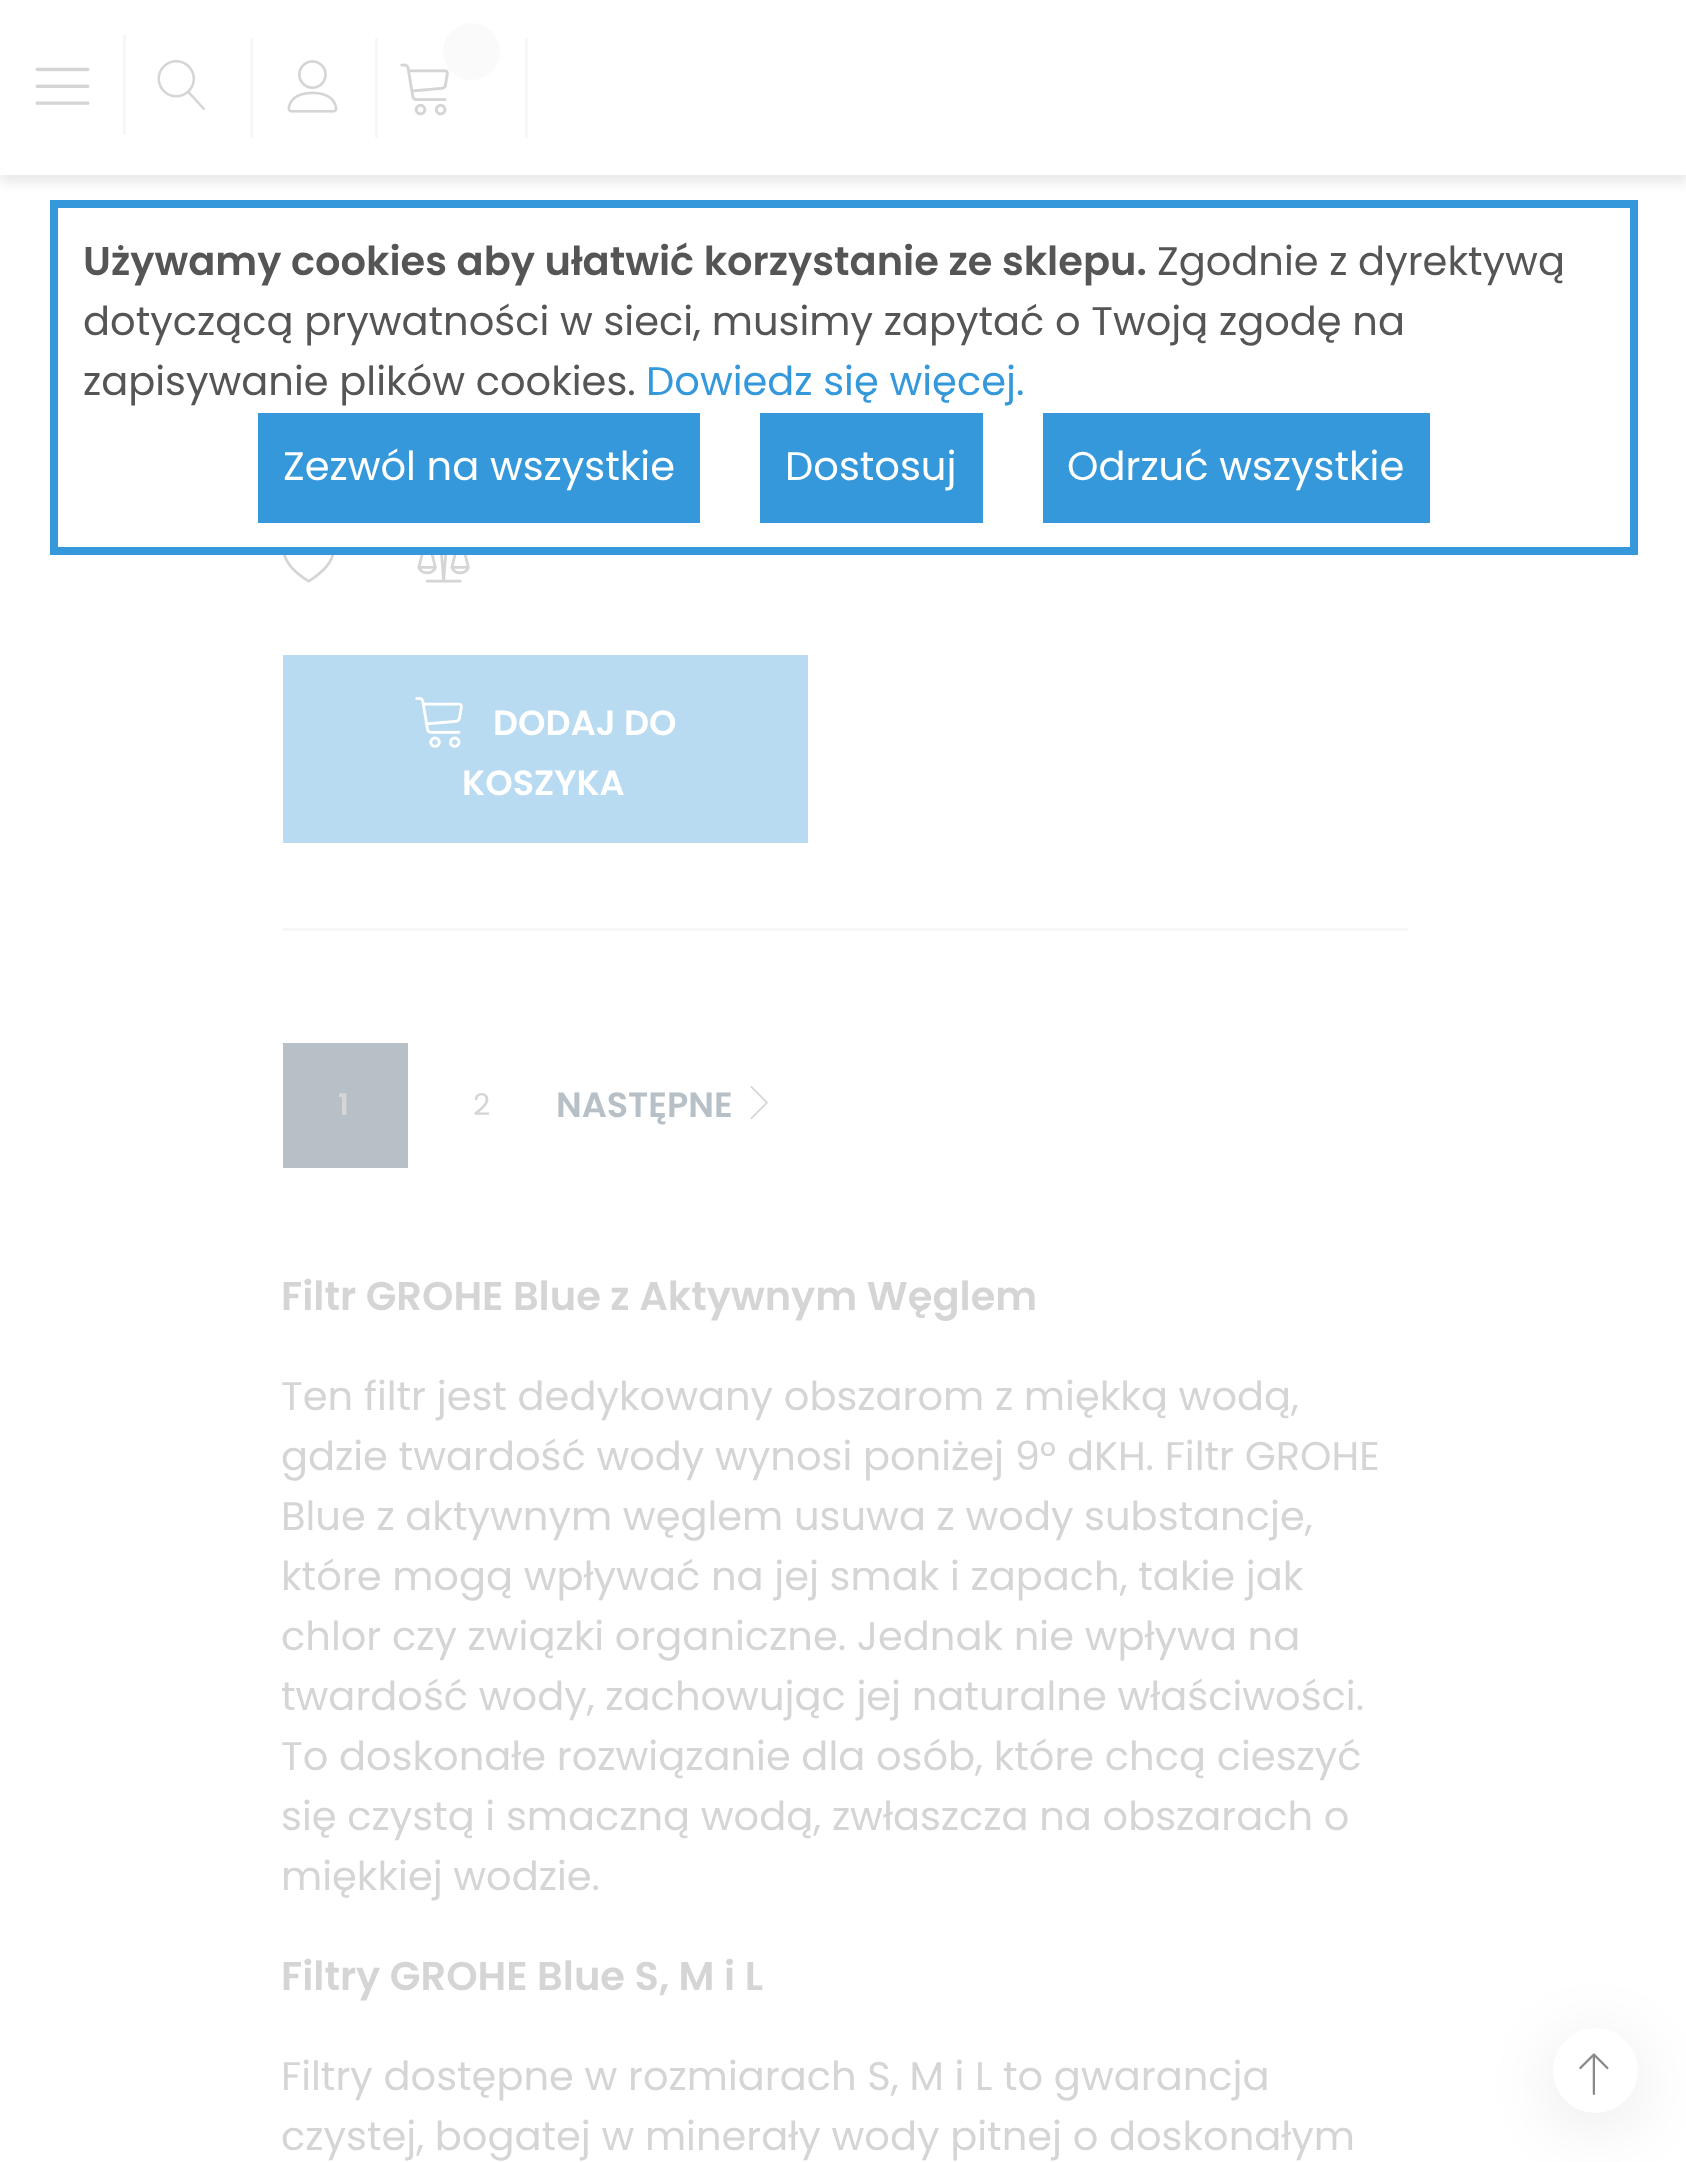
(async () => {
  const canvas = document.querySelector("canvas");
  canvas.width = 1686;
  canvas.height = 2162;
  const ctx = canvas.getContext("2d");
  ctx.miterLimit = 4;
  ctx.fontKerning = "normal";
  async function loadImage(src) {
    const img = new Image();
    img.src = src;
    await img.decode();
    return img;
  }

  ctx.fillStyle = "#ffffff";
  ctx.fillRect(0, 0, 1686, 2162);
  ctx.fillStyle = "rgba(166, 166, 166, 0.25)";
  ctx.filter = "blur(6px)";
  ctx.beginPath();
  ctx.rect(0, 8, 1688, 175);
  ctx.fill();
  ctx.filter = "none";
  ctx.strokeStyle = "#3598db";
  ctx.lineWidth = 8;
  ctx.strokeRect(54, 204, 1580, 347);
  for (const [x, y, w, h, color] of [
    [258, 413, 442, 110, "#3598db"],
    [760, 413, 223, 110, "#3598db"],
    [1043, 413, 387, 110, "#3598db"],
    [0, 1, 1686, 174, "#ffffff"],
    [123, 35, 3, 100, "#f8f7f7"],
  ]) {
    ctx.fillStyle = color;
    ctx.fillRect(x, y, w, h);
  }
  ctx.drawImage(await loadImage("img/1.png"), 35, 67, 55, 38);
  ctx.drawImage(await loadImage("img/2.png"), 157, 60, 48, 50);
  ctx.fillRect(250, 38, 3, 100);
  ctx.drawImage(await loadImage("img/3.png"), 287, 60, 51, 53);
  ctx.fillRect(525, 38, 3, 100);
  ctx.fillRect(375, 38, 3, 100);
  ctx.drawImage(await loadImage("img/4.png"), 400, 63, 49, 53);
  ctx.fillStyle = "#fafafa";
  ctx.beginPath();
  ctx.arc(471.5, 51.5, 28.5, 0, Math.PI * 2);
  ctx.fill();
  ctx.drawImage(await loadImage("img/5.png"), 283, 555, 51, 28);
  ctx.drawImage(await loadImage("img/6.png"), 417, 555, 53, 28);
  ctx.fillStyle = "#b8dbf2";
  ctx.fillRect(283, 655, 525, 188);
  ctx.drawImage(await loadImage("img/7.png"), 415, 697, 48, 51);
  ctx.fillStyle = "#f8f7f7";
  ctx.fillRect(283, 928, 1125, 3);
  ctx.fillStyle = "#b7c0c6";
  ctx.fillRect(283, 1043, 125, 125);
  ctx.drawImage(await loadImage("img/8.png"), 750, 1086, 18, 34);
  ctx.fillStyle = "rgba(0, 0, 0, 0.09)";
  ctx.filter = "blur(34px)";
  ctx.beginPath();
  ctx.roundRect(1553, 2040, 85, 85, 42.5);
  ctx.fill();
  ctx.filter = "none";
  ctx.fillStyle = "#ffffff";
  ctx.beginPath();
  ctx.arc(1595.5, 2070.5, 42.5, 0, Math.PI * 2);
  ctx.fill();
  ctx.drawImage(await loadImage("img/9.png"), 1579, 2053, 30, 42);
  ctx.font = "600 40px Poppins";
  ctx.fillStyle = "#555555";
  ctx.fillText("Używamy cookies aby ułatwić korzystanie ze sklepu.", 83, 275);
  ctx.font = "40px Poppins";
  for (const [text, x, y] of [
    ["Zgodnie z dyrektywą", 1157, 275],
    ["dotyczącą prywatności w sieci, musimy zapytać o Twoją zgodę na", 83, 335],
    ["zapisywanie plików cookies.", 83, 395],
  ]) {
    ctx.fillText(text, x, y);
  }
  ctx.fillStyle = "#3598db";
  ctx.fillText("Dowiedz się więcej.", 646, 395);
  ctx.fillStyle = "#ffffff";
  for (const [text, x, y] of [
    ["Zezwól na wszystkie", 283, 480],
    ["Dostosuj", 785, 480],
    ["Odrzuć wszystkie", 1067, 480],
  ]) {
    ctx.fillText(text, x, y);
  }
  ctx.font = "600 35px Poppins";
  ctx.fillText("DODAJ DO", 493, 735);
  ctx.fillText("KOSZYKA", 462, 795);
  ctx.font = "600 30px Poppins";
  ctx.fillStyle = "#d5d5d5";
  ctx.fillText("1", 338, 1115);
  ctx.font = "30px Poppins";
  ctx.fillText("2", 473, 1115);
  ctx.font = "600 35px Poppins";
  ctx.fillStyle = "#b7c0c6";
  ctx.fillText("NASTĘPNE", 556, 1117);
  ctx.font = "600 40px Poppins";
  ctx.fillStyle = "#d5d5d5";
  ctx.fillText("Filtr GROHE Blue z Aktywnym Węglem", 281, 1310);
  ctx.font = "40px Poppins";
  for (const [text, x, y] of [
    ["Ten filtr jest dedykowany obszarom z miękką wodą,", 281, 1410],
    ["gdzie twardość wody wynosi poniżej 9° dKH. Filtr GROHE", 281, 1470],
    ["Blue z aktywnym węglem usuwa z wody substancje,", 281, 1530],
    ["które mogą wpływać na jej smak i zapach, takie jak", 281, 1590],
    ["chlor czy związki organiczne. Jednak nie wpływa na", 281, 1650],
    ["twardość wody, zachowując jej naturalne właściwości.", 281, 1710],
    ["To doskonałe rozwiązanie dla osób, które chcą cieszyć", 281, 1770],
    ["się czystą i smaczną wodą, zwłaszcza na obszarach o", 281, 1830],
    ["miękkiej wodzie.", 281, 1890],
  ]) {
    ctx.fillText(text, x, y);
  }
  ctx.font = "600 40px Poppins";
  ctx.fillText("Filtry GROHE Blue S, M i L", 281, 1990);
  ctx.font = "40px Poppins";
  ctx.fillText("Filtry dostępne w rozmiarach S, M i L to gwarancja", 281, 2090);
  ctx.fillText("czystej, bogatej w minerały wody pitnej o doskonałym", 281, 2150);
})();
